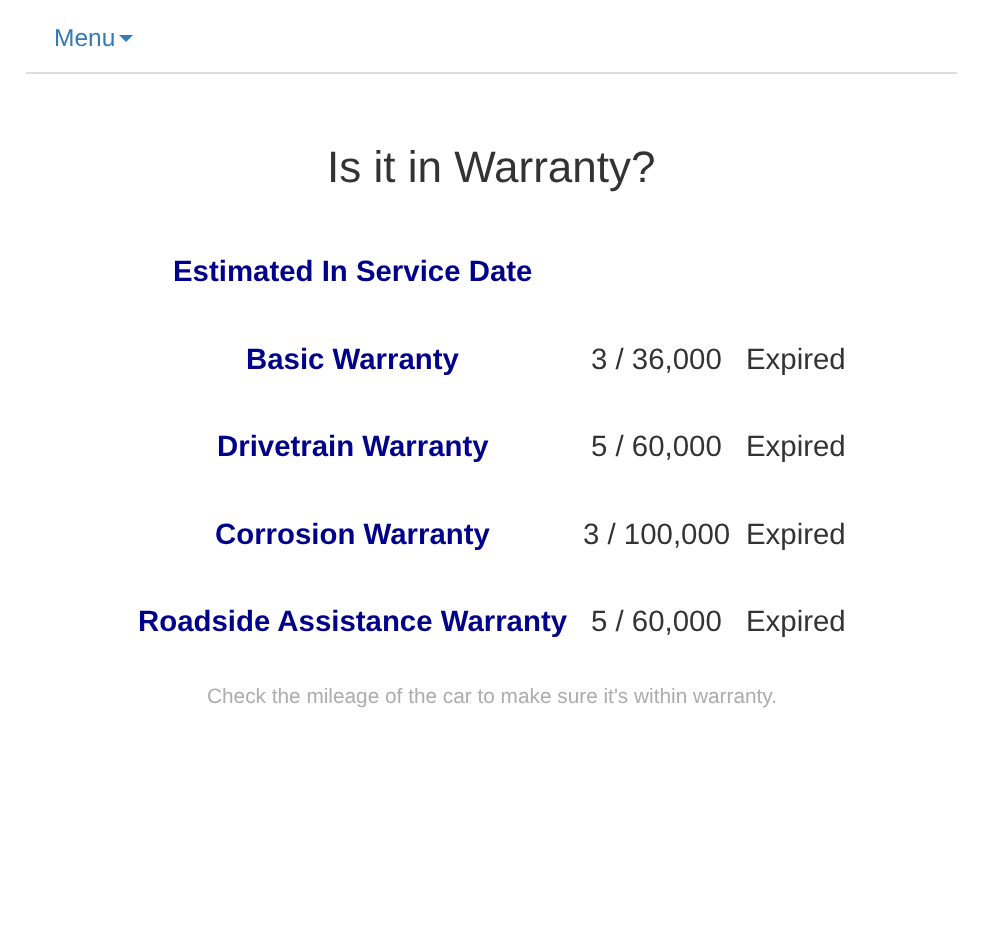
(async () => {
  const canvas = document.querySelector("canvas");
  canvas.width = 982;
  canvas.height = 932;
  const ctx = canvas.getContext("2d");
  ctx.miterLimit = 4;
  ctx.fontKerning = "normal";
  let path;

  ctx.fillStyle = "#ffffff";
  ctx.fillRect(0, 0, 982, 932);
  ctx.fillStyle = "#dddddd";
  ctx.fillRect(26, 72, 931, 2);
  ctx.fillStyle = "#337ab7";
  path = new Path2D("M119 35H133L126 42Z");
  ctx.fill(path);
  ctx.font = "24.5px Liberation Sans";
  ctx.fillText("Menu", 54, 46);
  ctx.font = "44px Liberation Sans";
  ctx.fillStyle = "#333333";
  ctx.fillText("Is it in Warranty?", 327, 182);
  ctx.font = "bold 29.4px Liberation Sans";
  ctx.fillStyle = "#00008b";
  ctx.fillText("Estimated In Service Date", 173, 281);
  ctx.fillText("Basic Warranty", 246, 369);
  ctx.font = "29.4px Liberation Sans";
  ctx.fillStyle = "#333333";
  ctx.fillText("3 / 36,000", 591, 369);
  ctx.fillText("Expired", 746, 369);
  ctx.font = "bold 29.4px Liberation Sans";
  ctx.fillStyle = "#00008b";
  ctx.fillText("Drivetrain Warranty", 217, 456);
  ctx.font = "29.4px Liberation Sans";
  ctx.fillStyle = "#333333";
  ctx.fillText("5 / 60,000", 591, 456);
  ctx.fillText("Expired", 746, 456);
  ctx.font = "bold 29.4px Liberation Sans";
  ctx.fillStyle = "#00008b";
  ctx.fillText("Corrosion Warranty", 215, 544);
  ctx.font = "29.4px Liberation Sans";
  ctx.fillStyle = "#333333";
  ctx.fillText("3 / 100,000", 583, 544);
  ctx.fillText("Expired", 746, 544);
  ctx.font = "bold 29.4px Liberation Sans";
  ctx.fillStyle = "#00008b";
  ctx.fillText("Roadside Assistance Warranty", 138, 631);
  ctx.font = "29.4px Liberation Sans";
  ctx.fillStyle = "#333333";
  ctx.fillText("5 / 60,000", 591, 631);
  ctx.fillText("Expired", 746, 631);
  ctx.font = "20.8px Liberation Sans";
  ctx.fillStyle = "#adadad";
  ctx.fillText("Check the mileage of the car to make sure it's within warranty.", 207, 703);
})();
